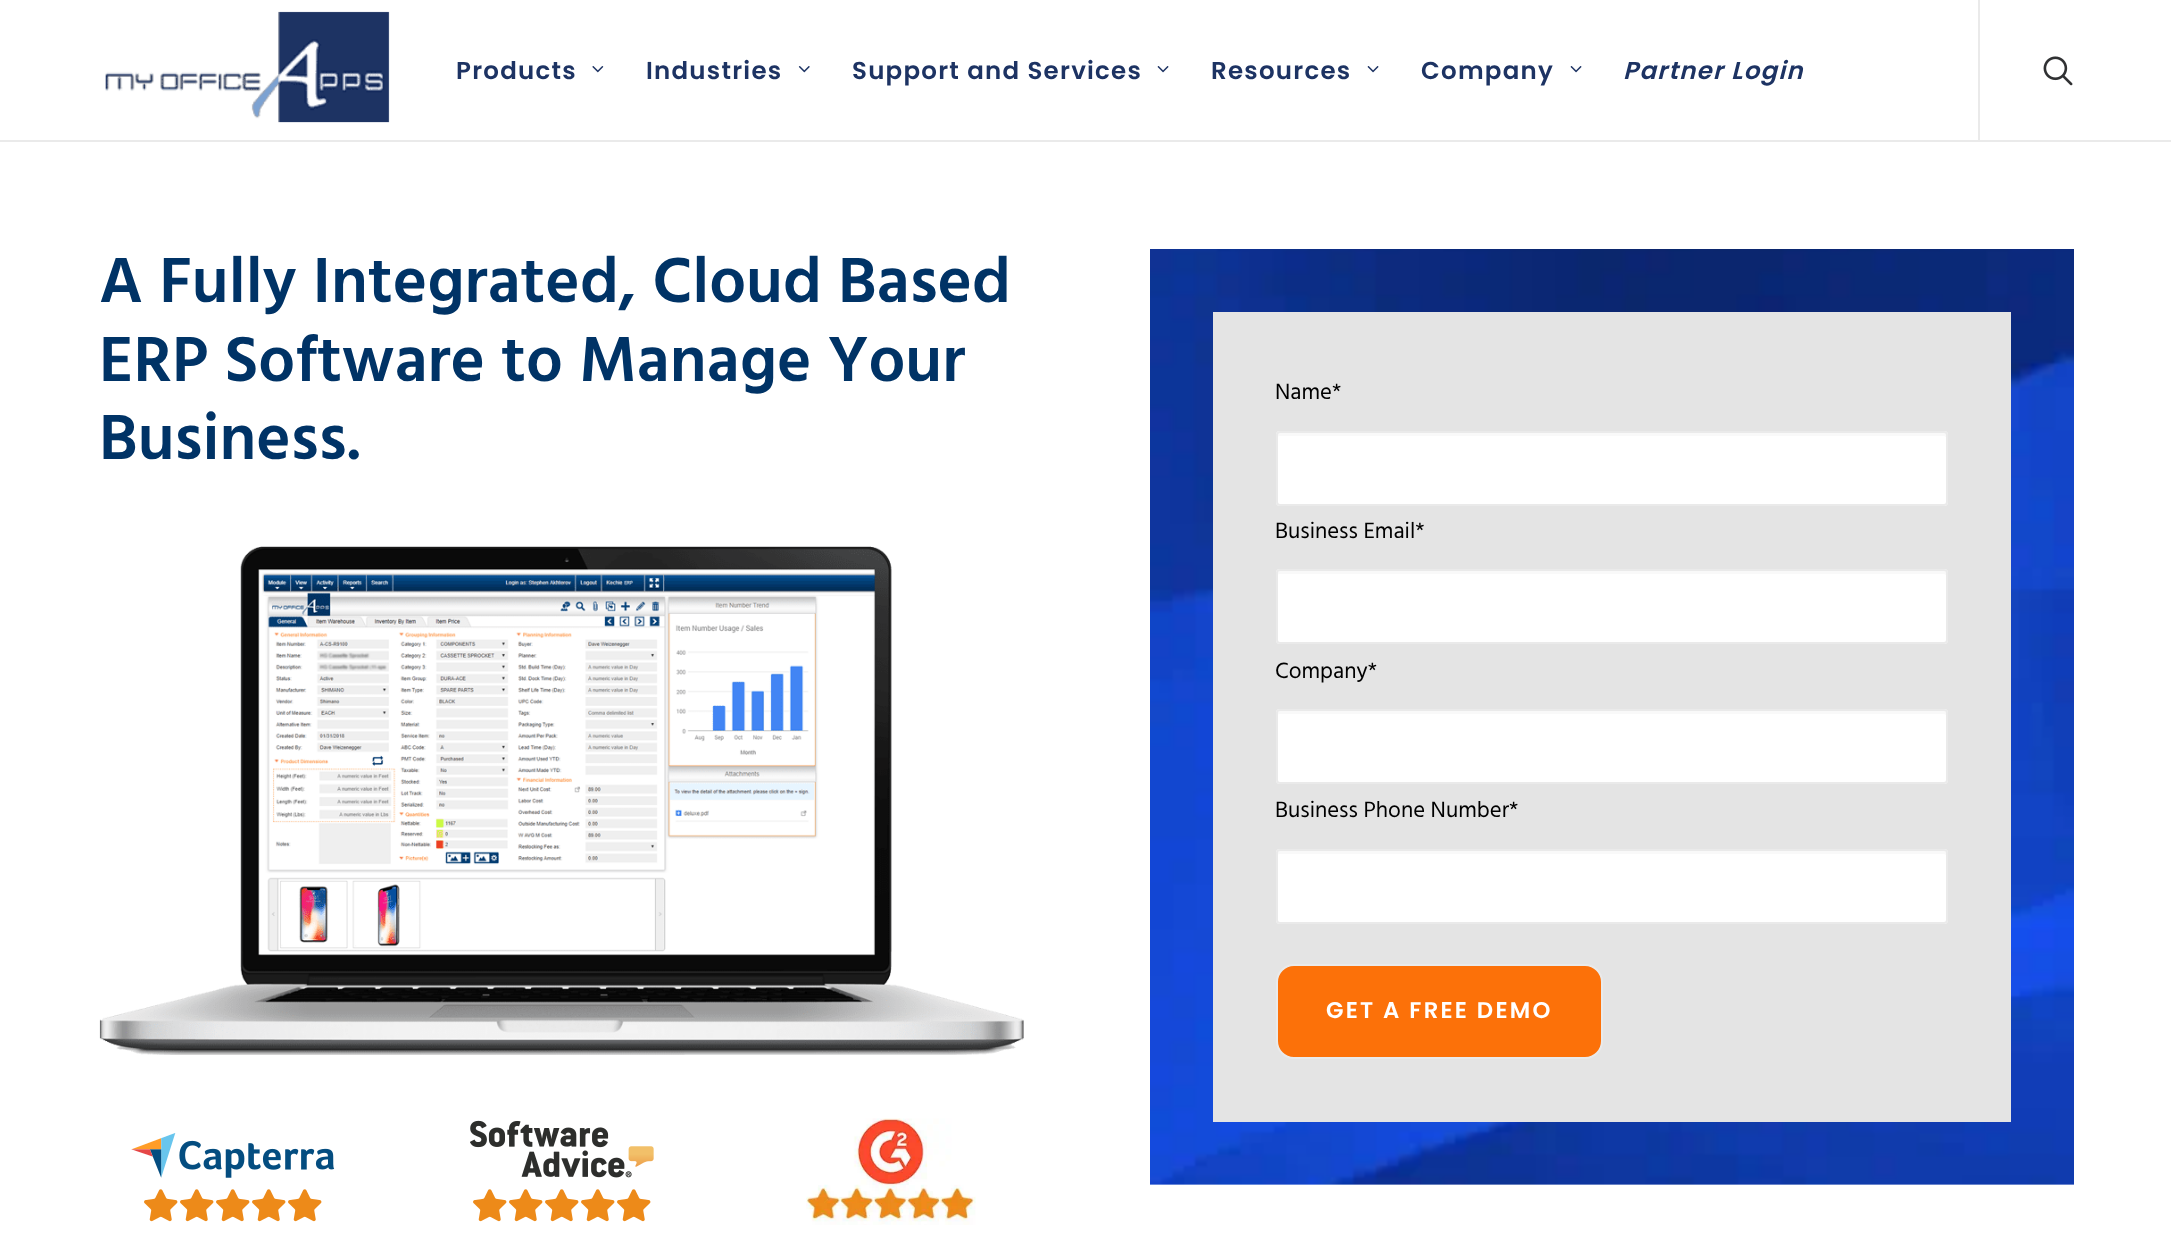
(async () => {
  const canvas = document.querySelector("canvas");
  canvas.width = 2171;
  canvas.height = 1246;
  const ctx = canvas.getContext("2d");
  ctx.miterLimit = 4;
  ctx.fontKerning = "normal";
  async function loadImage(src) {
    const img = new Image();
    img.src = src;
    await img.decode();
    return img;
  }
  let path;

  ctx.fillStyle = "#ffffff";
  ctx.fillRect(0, 0, 2171, 1246);
  ctx.fillStyle = "#eaeaea";
  ctx.fillRect(0, 140, 2171, 2);
  ctx.drawImage(await loadImage("img/1.png"), 105, 11, 285, 112);
  ctx.drawImage(await loadImage("img/2.png"), 592, 66, 12, 7);
  ctx.drawImage(await loadImage("img/3.png"), 798, 66, 12, 7);
  ctx.drawImage(await loadImage("img/4.png"), 1157, 66, 12, 7);
  ctx.drawImage(await loadImage("img/4.png"), 1367, 66, 12, 7);
  ctx.drawImage(await loadImage("img/4.png"), 1570, 66, 12, 7);
  ctx.fillRect(1978, 0, 2, 140);
  ctx.drawImage(await loadImage("img/5.png"), 2043, 56, 30, 30);
  ctx.drawImage(await loadImage("img/6.png"), 99, 546, 925, 509);
  ctx.drawImage(await loadImage("img/7.png"), 131, 1133, 204, 89);
  ctx.drawImage(await loadImage("img/8.png"), 470, 1120, 184, 102);
  ctx.drawImage(await loadImage("img/9.png"), 806, 1118, 170, 107);
  ctx.drawImage(await loadImage("img/10.png"), 1150, 249, 924, 936);
  ctx.fillStyle = "#e4e4e4";
  ctx.fillRect(1213, 312, 798, 810);
  ctx.fillStyle = "#ffffff";
  ctx.beginPath();
  ctx.roundRect(1276, 431, 672, 75, 4);
  ctx.fill();
  ctx.fillStyle = "#f9f9f9";
  path = new Path2D("M1279 436H1944C1945 436 1946 437 1946 438V434C1946 433 1945 432 1944 432H1280C1279 432 1278 433 1278 434V438C1278 437 1278 436 1279 436Z");
  ctx.fill(path);
  ctx.beginPath();
  ctx.roundRect(1277, 432, 670, 73, 3);
  ctx.strokeStyle = "#eaeaea";
  ctx.lineWidth = 2;
  ctx.stroke();
  ctx.fillStyle = "#ffffff";
  ctx.beginPath();
  ctx.roundRect(1276, 569, 672, 75, 4);
  ctx.fill();
  ctx.fillStyle = "#f9f9f9";
  path = new Path2D("M1279 574H1944C1945 574 1946 575 1946 576V573C1946 572 1945 571 1944 571H1280C1279 571 1278 572 1278 573V576C1278 575 1278 574 1279 574Z");
  ctx.fill(path);
  ctx.beginPath();
  ctx.roundRect(1277, 570, 670, 73, 3);
  ctx.stroke();
  ctx.fillStyle = "#ffffff";
  ctx.beginPath();
  ctx.roundRect(1276, 709, 672, 75, 4);
  ctx.fill();
  ctx.fillStyle = "#f9f9f9";
  path = new Path2D("M1279 714H1944C1945 714 1946 715 1946 716V713C1946 712 1945 711 1944 711H1280C1279 711 1278 712 1278 713V716C1278 715 1278 714 1279 714Z");
  ctx.fill(path);
  ctx.beginPath();
  ctx.roundRect(1277, 710, 670, 73, 3);
  ctx.stroke();
  ctx.fillStyle = "#ffffff";
  ctx.beginPath();
  ctx.roundRect(1276, 849, 672, 75, 4);
  ctx.fill();
  ctx.fillStyle = "#f9f9f9";
  path = new Path2D("M1279 854H1944C1945 854 1946 855 1946 856V853C1946 852 1945 851 1944 851H1280C1279 851 1278 852 1278 853V856C1278 855 1278 854 1279 854Z");
  ctx.fill(path);
  ctx.beginPath();
  ctx.roundRect(1277, 850, 670, 73, 3);
  ctx.stroke();
  ctx.fillStyle = "#fc7109";
  ctx.beginPath();
  ctx.roundRect(1277, 965, 325, 93, 17);
  ctx.fill();
  ctx.stroke();
  ctx.letterSpacing = "1.25px";
  ctx.font = "600 24.5px Poppins";
  ctx.fillStyle = "#1d3363";
  for (const [text, x, y] of [
    ["Products", 456, 79],
    ["Industries", 646, 79],
    ["Support and Services", 852, 79],
    ["Resources", 1211, 79],
    ["Company", 1421, 79],
  ]) {
    ctx.fillText(text, x, y);
  }
  ctx.font = "italic 600 24.5px Poppins";
  ctx.fillText("Partner Login", 1623, 79);
  ctx.letterSpacing = "0px";
  ctx.font = "600 65.3px Hind";
  ctx.fillStyle = "#003366";
  for (const [text, x, y] of [
    ["A Fully Integrated, Cloud Based", 99, 302],
    ["ERP Software to Manage Your", 99, 381],
    ["Business.", 99, 459],
  ]) {
    ctx.fillText(text, x, y);
  }
  ctx.font = "22.75px Hind";
  ctx.fillStyle = "#000000";
  for (const [text, x, y] of [
    ["Name*", 1275, 399],
    ["Business Email*", 1275, 538],
    ["Company*", 1275, 678],
    ["Business Phone Number*", 1275, 817],
  ]) {
    ctx.fillText(text, x, y);
  }
  ctx.letterSpacing = "2.25px";
  ctx.font = "600 22.75px Poppins";
  ctx.fillStyle = "#ffffff";
  ctx.fillText("GET A FREE DEMO", 1326, 1018);
})();
